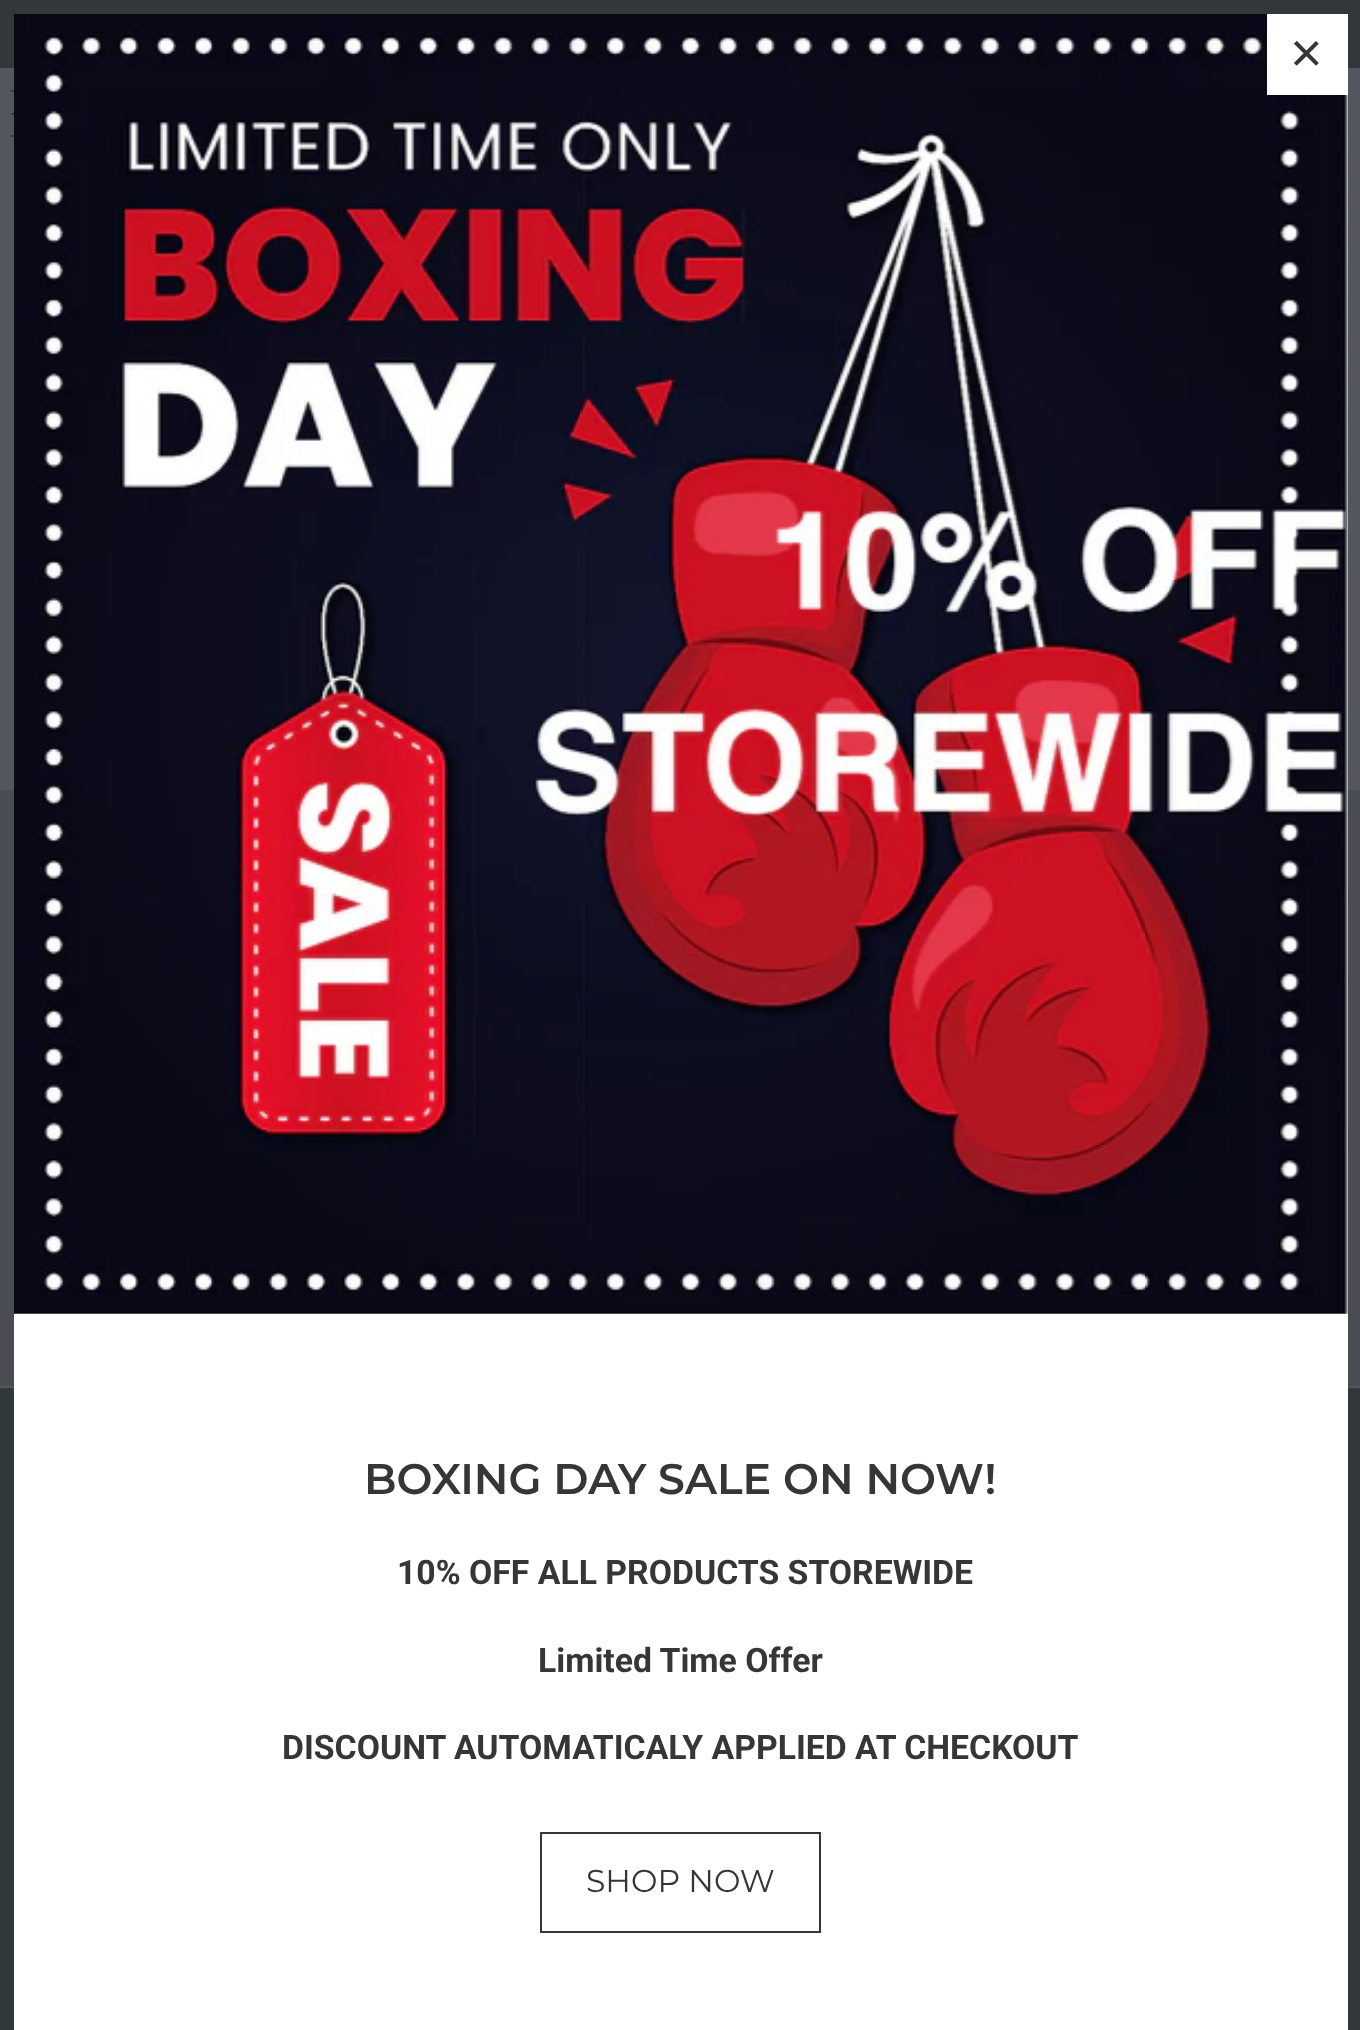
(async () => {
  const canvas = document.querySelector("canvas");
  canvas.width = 1360;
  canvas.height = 2030;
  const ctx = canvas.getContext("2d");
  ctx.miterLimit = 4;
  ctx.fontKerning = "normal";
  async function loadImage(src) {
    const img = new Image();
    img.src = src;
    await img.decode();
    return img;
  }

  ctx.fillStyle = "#53565e";
  ctx.fillRect(0, 0, 1360, 2030);
  ctx.fillStyle = "#32383a";
  ctx.fillRect(0, 0, 1360, 68);
  ctx.beginPath();
  ctx.roundRect(11, 90, 68, 2, 1);
  ctx.fill();
  ctx.beginPath();
  ctx.roundRect(11, 113, 68, 2, 1);
  ctx.fill();
  ctx.beginPath();
  ctx.roundRect(11, 135, 68, 2, 1);
  ctx.fill();
  for (const [x, y, w, h, color] of [
    [0, 790, 1360, 596, "#4a4c54"],
    [0, 1388, 1360, 642, "#32383a"],
    [14, 95, 1334, 1935, "#ffffff"],
  ]) {
    ctx.fillStyle = color;
    ctx.fillRect(x, y, w, h);
  }
  ctx.drawImage(await loadImage("img/1.png"), 14, 14, 1334, 1300);
  ctx.fillRect(1267, 14, 81, 81);
  ctx.strokeStyle = "#363636";
  ctx.lineWidth = 2;
  ctx.strokeRect(541, 1833, 279, 99);
  ctx.font = "56px Liberation Sans";
  ctx.fillStyle = "#363636";
  ctx.fillText("×", 1290, 72);
  ctx.font = "600 42.75px Montserrat";
  ctx.fillText("BOXING DAY SALE ON NOW!", 364, 1494);
  ctx.font = "bold 33.75px Roboto";
  for (const [text, x, y] of [
    ["10% OFF ALL PRODUCTS STOREWIDE", 397, 1584],
    ["Limited Time Offer", 538, 1672],
    ["DISCOUNT AUTOMATICALY APPLIED AT CHECKOUT", 282, 1759],
  ]) {
    ctx.fillText(text, x, y);
  }
  ctx.font = "31.5px Montserrat";
  ctx.fillText("SHOP NOW", 586, 1892);
})();
